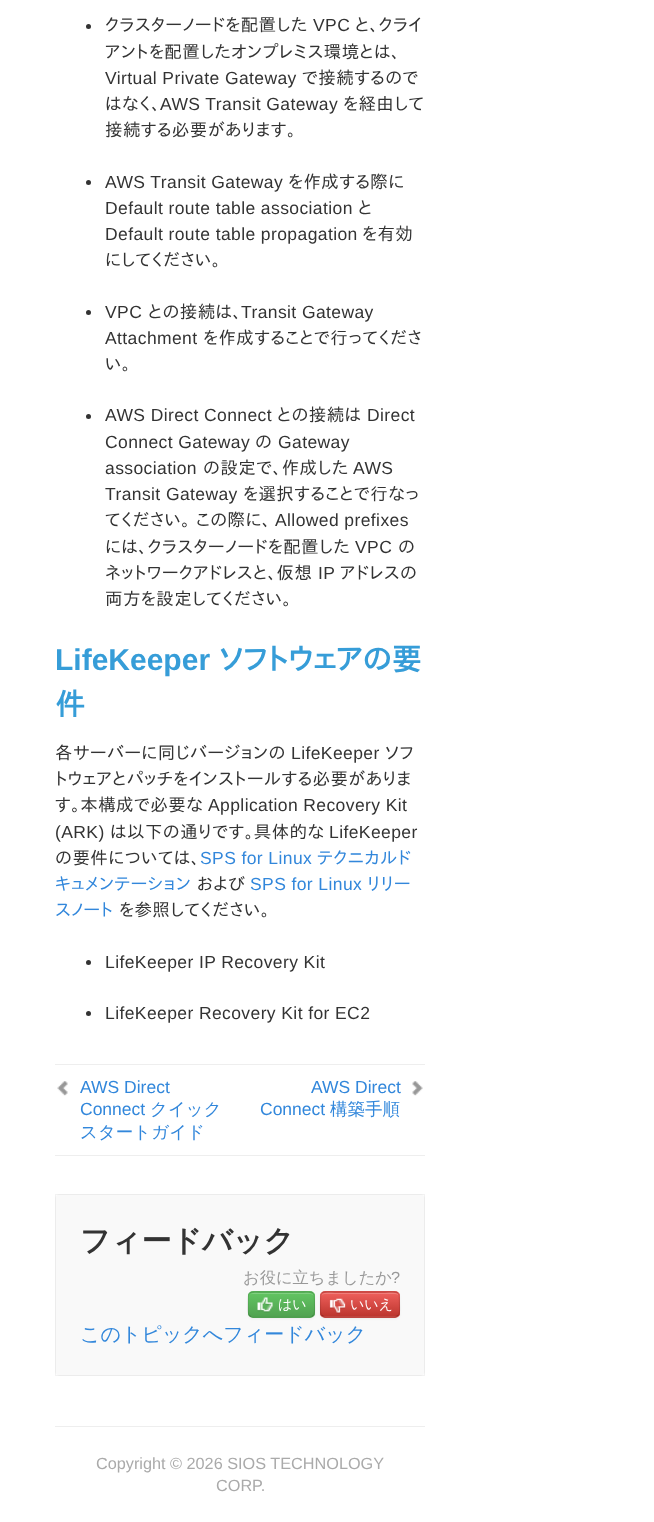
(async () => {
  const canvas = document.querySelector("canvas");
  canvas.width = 654;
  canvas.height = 1522;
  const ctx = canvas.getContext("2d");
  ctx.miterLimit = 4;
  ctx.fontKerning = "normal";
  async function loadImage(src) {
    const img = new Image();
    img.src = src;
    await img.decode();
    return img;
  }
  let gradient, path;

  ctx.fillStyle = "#ffffff";
  ctx.fillRect(0, 0, 654, 1522);
  ctx.fillStyle = "#333333";
  ctx.beginPath();
  ctx.arc(88.5, 26.5, 2.5, 0, Math.PI * 2);
  ctx.fill();
  ctx.beginPath();
  ctx.arc(88.5, 182.5, 2.5, 0, Math.PI * 2);
  ctx.fill();
  ctx.beginPath();
  ctx.arc(88.5, 312.5, 2.5, 0, Math.PI * 2);
  ctx.fill();
  ctx.beginPath();
  ctx.arc(88.5, 416.5, 2.5, 0, Math.PI * 2);
  ctx.fill();
  ctx.beginPath();
  ctx.arc(88.5, 962.5, 2.5, 0, Math.PI * 2);
  ctx.fill();
  ctx.beginPath();
  ctx.arc(88.5, 1013.5, 2.5, 0, Math.PI * 2);
  ctx.fill();
  ctx.fillStyle = "#eeeeee";
  ctx.fillRect(55, 1064, 370, 1);
  ctx.fillRect(55, 1155, 370, 1);
  ctx.drawImage(await loadImage("img/1.png"), 57, 1081, 11, 15);
  ctx.drawImage(await loadImage("img/2.png"), 412, 1081, 11, 15);
  ctx.fillStyle = "#f9f9f9";
  ctx.beginPath();
  ctx.roundRect(55, 1194, 370, 182, 5);
  ctx.fill();
  ctx.strokeStyle = "rgba(0, 0, 0, 0.05)";
  ctx.strokeRect(55.5, 1194.5, 369, 181);
  ctx.fillStyle = "rgba(0, 0, 0, 0.05)";
  ctx.filter = "blur(1px)";
  ctx.beginPath();
  ctx.roundRect(248, 1293, 67, 26, 5);
  ctx.fill();
  ctx.filter = "none";
  ctx.fillStyle = "#5bb75b";
  ctx.beginPath();
  ctx.roundRect(248, 1291, 67, 27, 5);
  ctx.fill();
  ctx.save();
  ctx.beginPath();
  ctx.roundRect(248, 1291, 67, 27, 5);
  ctx.clip();
  gradient = ctx.createLinearGradient(281, 1293, 281, 1316);
  gradient.addColorStop(0, "#62c462");
  gradient.addColorStop(1, "#51a351");
  ctx.fillStyle = gradient;
  ctx.fillRect(248, 1293, 67, 23);
  ctx.restore();
  ctx.fillStyle = "#81cf81";
  path = new Path2D("M252 1294H310C312 1294 314 1295 314 1298C314 1291 306 1293 300 1293H262C257 1293 249 1291 249 1298C249 1295 250 1294 252 1294Z");
  ctx.fill(path);
  path = new Path2D("M313 1315.5C312.5 1316.5 311 1317 310 1317H252.5C251.5 1317 250 1316.5 249.5 1315.5");
  ctx.strokeStyle = "rgba(0, 0, 0, 0.25)";
  ctx.lineWidth = 1.2;
  ctx.stroke(path);
  path = new Path2D("M249.5 1315.5C247 1313 248 1307.5 248 1304.5C248 1290.5 247.5 1292 262 1292H300.5C315 1292 314.5 1290.5 314.5 1304.5C314.5 1307.5 315.5 1313 313 1315.5");
  ctx.strokeStyle = "rgba(0, 0, 0, 0.1)";
  ctx.stroke(path);
  ctx.drawImage(await loadImage("img/3.png"), 257, 1297, 16, 16);
  ctx.fillStyle = "rgba(0, 0, 0, 0.05)";
  ctx.filter = "blur(1px)";
  ctx.beginPath();
  ctx.roundRect(320, 1293, 80, 26, 5);
  ctx.fill();
  ctx.filter = "none";
  ctx.fillStyle = "#da4f49";
  ctx.beginPath();
  ctx.roundRect(320, 1291, 80, 27, 5);
  ctx.fill();
  ctx.save();
  ctx.beginPath();
  ctx.roundRect(320, 1291, 80, 27, 5);
  ctx.clip();
  gradient = ctx.createLinearGradient(360, 1293, 360, 1316);
  gradient.addColorStop(0, "#ee5f5b");
  gradient.addColorStop(1, "#bd362f");
  ctx.fillStyle = gradient;
  ctx.fillRect(320, 1293, 80, 23);
  ctx.restore();
  ctx.fillStyle = "rgba(255, 255, 255, 0.2)";
  path = new Path2D("M325 1294H395C397 1294 399 1295 399 1298C399 1290 388 1293 383 1293H337C332 1293 321 1290 321 1298C321 1295 323 1294 325 1294Z");
  ctx.fill(path);
  path = new Path2D("M398 1315.5L395.5 1317H324.5L322 1315.5");
  ctx.strokeStyle = "rgba(0, 0, 0, 0.25)";
  ctx.stroke(path);
  path = new Path2D("M322 1315.5C320 1313.5 320.5 1309.5 320.5 1307C320.5 1290 319 1292 336.5 1292H383.5C399.5 1292 399.5 1289.5 399.5 1304.5C399.5 1307.5 400.5 1313 398 1315.5");
  ctx.strokeStyle = "rgba(0, 0, 0, 0.1)";
  ctx.stroke(path);
  ctx.drawImage(await loadImage("img/4.png"), 329, 1298, 17, 16);
  ctx.fillStyle = "#eeeeee";
  ctx.fillRect(55, 1426, 370, 1);
  ctx.letterSpacing = "0.4px";
  ctx.font = "17.5px IPAPGothic";
  ctx.fillStyle = "#333333";
  ctx.fillText("クラスターノードを配置した", 105, 31);
  ctx.font = "17.5px Liberation Sans";
  ctx.fillText("VPC", 313, 31);
  ctx.font = "17.5px IPAPGothic";
  ctx.fillText("と、クライ", 355, 31);
  ctx.fillText("アントを配置したオンプレミス環境とは、", 105, 58);
  ctx.font = "17.5px Liberation Sans";
  ctx.fillText("Virtual Private Gateway", 105, 84);
  ctx.font = "17.5px IPAPGothic";
  ctx.fillText("で接続するので", 302, 84);
  ctx.fillText("はなく、", 105, 110);
  ctx.font = "17.5px Liberation Sans";
  ctx.fillText("AWS Transit Gateway", 160, 110);
  ctx.font = "17.5px IPAPGothic";
  ctx.fillText("を経由して", 343, 110);
  ctx.fillText("接続する必要があります。", 105, 136);
  ctx.font = "17.5px Liberation Sans";
  ctx.fillText("AWS Transit Gateway", 105, 188);
  ctx.font = "17.5px IPAPGothic";
  ctx.fillText("を作成する際に", 288, 188);
  ctx.font = "17.5px Liberation Sans";
  ctx.fillText("Default route table association", 105, 214);
  ctx.font = "17.5px IPAPGothic";
  ctx.fillText("と", 358, 214);
  ctx.font = "17.5px Liberation Sans";
  ctx.fillText("Default route table propagation", 105, 240);
  ctx.font = "17.5px IPAPGothic";
  ctx.fillText("を有効", 362, 240);
  ctx.fillText("にしてください。", 105, 266);
  ctx.font = "17.5px Liberation Sans";
  ctx.fillText("VPC", 105, 318);
  ctx.font = "17.5px IPAPGothic";
  ctx.fillText("との接続は、", 148, 318);
  ctx.font = "17.5px Liberation Sans";
  ctx.fillText("Transit Gateway", 241, 318);
  ctx.fillText("Attachment", 105, 344);
  ctx.font = "17.5px IPAPGothic";
  ctx.fillText("を作成することで行ってくださ", 203, 344);
  ctx.fillText("い。", 105, 370);
  ctx.font = "17.5px Liberation Sans";
  ctx.fillText("AWS Direct Connect", 105, 421);
  ctx.font = "17.5px IPAPGothic";
  ctx.fillText("との接続は", 277, 421);
  ctx.font = "17.5px Liberation Sans";
  ctx.fillText("Direct", 367, 421);
  ctx.fillText("Connect Gateway", 105, 448);
  ctx.font = "17.5px IPAPGothic";
  ctx.fillText("の", 255, 448);
  ctx.font = "17.5px Liberation Sans";
  ctx.fillText("Gateway", 278, 448);
  ctx.fillText("association", 105, 474);
  ctx.font = "17.5px IPAPGothic";
  ctx.fillText("の設定で、作成した", 203, 474);
  ctx.font = "17.5px Liberation Sans";
  ctx.fillText("AWS", 353, 474);
  ctx.fillText("Transit Gateway", 105, 500);
  ctx.font = "17.5px IPAPGothic";
  for (const [text, x, y] of [
    ["を選択することで行なっ", 243, 500],
    ["てください。", 105, 526],
    ["この際に、", 196, 526],
  ]) {
    ctx.fillText(text, x, y);
  }
  ctx.font = "17.5px Liberation Sans";
  ctx.fillText("Allowed prefixes", 275, 526);
  ctx.font = "17.5px IPAPGothic";
  ctx.fillText("には、クラスターノードを配置した", 105, 553);
  ctx.font = "17.5px Liberation Sans";
  ctx.fillText("VPC", 355, 553);
  ctx.font = "17.5px IPAPGothic";
  ctx.fillText("の", 398, 553);
  ctx.fillText("ネットワークアドレスと、仮想", 105, 579);
  ctx.font = "17.5px Liberation Sans";
  ctx.fillText("IP", 318, 579);
  ctx.font = "17.5px IPAPGothic";
  ctx.fillText("アドレスの", 340, 579);
  ctx.fillText("両方を設定してください。", 105, 605);
  ctx.letterSpacing = "0px";
  ctx.font = "bold 30px Liberation Sans";
  ctx.fillStyle = "#369dd8";
  ctx.fillText("LifeKeeper", 55, 670);
  ctx.font = "bold 30px IPAPGothic";
  ctx.fillText("ソフトウェアの要", 219, 670);
  ctx.fillText("件", 55, 715);
  ctx.letterSpacing = "0.4px";
  ctx.font = "17.5px IPAPGothic";
  ctx.fillStyle = "#333333";
  ctx.fillText("各サーバーに同じバージョンの", 55, 759);
  ctx.font = "17.5px Liberation Sans";
  ctx.fillText("LifeKeeper", 291, 759);
  ctx.font = "17.5px IPAPGothic";
  for (const [text, x, y] of [
    ["ソフ", 385, 759],
    ["トウェアとパッチをインストールする必要がありま", 55, 785],
    ["す。本構成で必要な", 55, 811],
  ]) {
    ctx.fillText(text, x, y);
  }
  ctx.font = "17.5px Liberation Sans";
  ctx.fillText("Application Recovery Kit", 208, 811);
  ctx.fillText("(ARK)", 55, 838);
  ctx.font = "17.5px IPAPGothic";
  ctx.fillText("は以下の通りです。具体的な", 110, 838);
  ctx.font = "17.5px Liberation Sans";
  ctx.fillText("LifeKeeper", 329, 838);
  ctx.font = "17.5px IPAPGothic";
  ctx.fillText("の要件については、", 55, 864);
  ctx.font = "17.5px Liberation Sans";
  ctx.fillStyle = "#3287db";
  ctx.fillText("SPS for Linux", 200, 864);
  ctx.font = "17.5px IPAPGothic";
  ctx.fillText("テクニカルド", 317, 864);
  ctx.fillText("キュメンテーション", 55, 890);
  ctx.fillStyle = "#333333";
  ctx.fillText("および", 197, 890);
  ctx.font = "17.5px Liberation Sans";
  ctx.fillStyle = "#3287db";
  ctx.fillText("SPS for Linux", 250, 890);
  ctx.font = "17.5px IPAPGothic";
  ctx.fillText("リリー", 367, 890);
  ctx.fillText("スノート", 55, 916);
  ctx.fillStyle = "#333333";
  ctx.fillText("を参照してください。", 119, 916);
  ctx.font = "17.5px Liberation Sans";
  ctx.fillText("LifeKeeper IP Recovery Kit", 105, 968);
  ctx.fillText("LifeKeeper Recovery Kit for EC2", 105, 1019);
  ctx.letterSpacing = "0px";
  ctx.fillStyle = "#3287db";
  ctx.fillText("AWS Direct", 80, 1093);
  ctx.fillText("Connect", 80, 1115);
  ctx.font = "500 17.5px WenQuanYi Zen Hei";
  ctx.fillText("クイック", 150, 1115);
  ctx.fillText("スタートガイド", 80, 1138);
  ctx.font = "17.5px Liberation Sans";
  ctx.fillText("AWS Direct", 311, 1093);
  ctx.fillText("Connect", 260, 1115);
  ctx.font = "500 17.5px WenQuanYi Zen Hei";
  ctx.fillText("構築手順", 330, 1115);
  ctx.font = "bold 30px WenQuanYi Zen Hei";
  ctx.fillStyle = "#333333";
  ctx.fillText("フィードバック", 80, 1251);
  ctx.font = "500 16.25px WenQuanYi Zen Hei";
  ctx.fillStyle = "#999999";
  ctx.fillText("お役に立ちましたか", 243, 1283);
  ctx.font = "16.25px Liberation Sans";
  ctx.fillText("?", 391, 1283);
  ctx.font = "500 14px WenQuanYi Zen Hei";
  ctx.fillStyle = "#ffffff";
  ctx.fillText("はい", 278, 1309);
  ctx.fillText("いいえ", 350, 1309);
  ctx.font = "500 20px WenQuanYi Zen Hei";
  ctx.fillStyle = "#3287db";
  ctx.fillText("このトピックへフィードバック", 80, 1341);
  ctx.font = "16.25px Liberation Sans";
  ctx.fillStyle = "#aaaaaa";
  ctx.fillText("Copyright © 2026 SIOS TECHNOLOGY", 96, 1469);
  ctx.fillText("CORP.", 216, 1491);
})();
